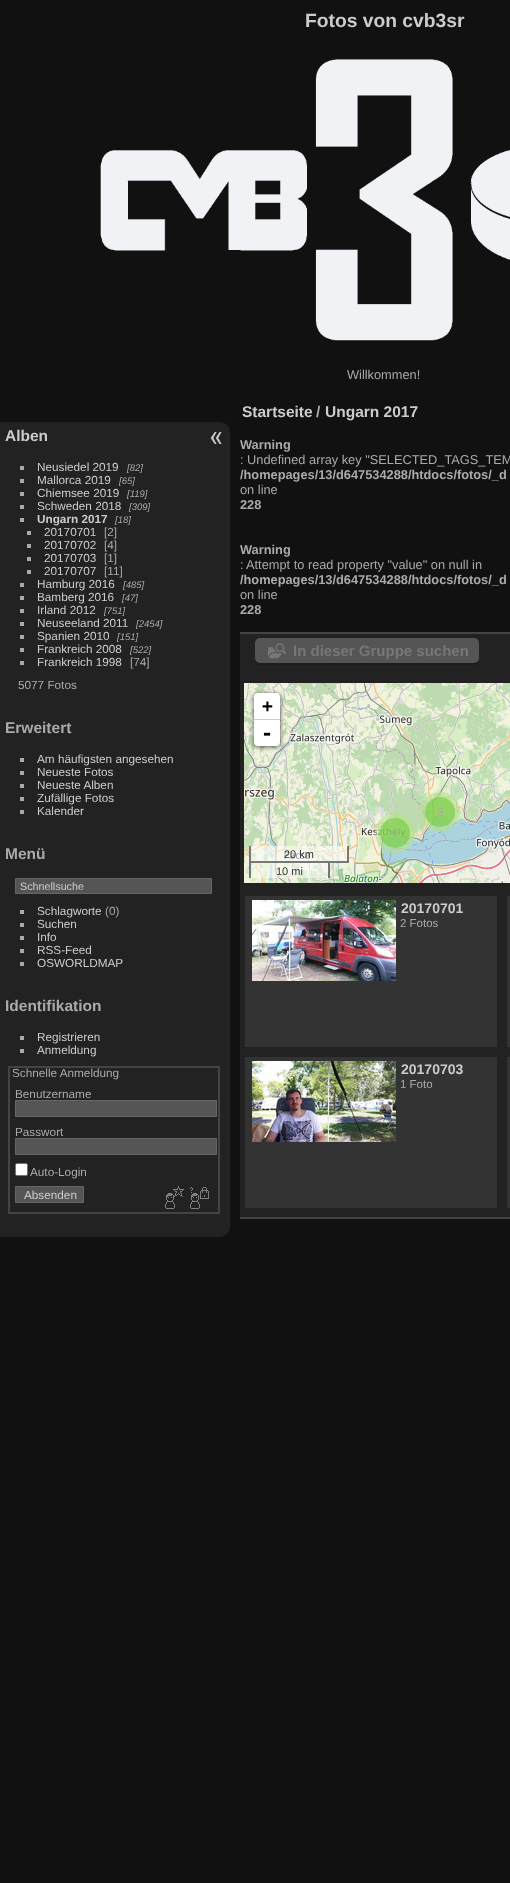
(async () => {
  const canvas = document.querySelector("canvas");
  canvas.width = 510;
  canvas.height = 1883;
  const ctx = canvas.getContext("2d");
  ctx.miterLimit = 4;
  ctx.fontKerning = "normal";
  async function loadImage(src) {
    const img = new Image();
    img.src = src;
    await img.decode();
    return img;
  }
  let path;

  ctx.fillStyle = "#111111";
  ctx.fillRect(0, 0, 510, 1883);
  ctx.drawImage(await loadImage("img/1.png"), 100, 59, 410, 282);
  ctx.fillStyle = "#222222";
  ctx.beginPath();
  ctx.roundRect(0, 422, 230, 815, [0, 10, 10, 0]);
  ctx.fill();
  for (const [x, y, w, h, color] of [
    [20, 466, 4, 4, "#aaaaaa"],
    [20, 479, 4, 4, "#aaaaaa"],
    [20, 492, 4, 4, "#aaaaaa"],
    [20, 505, 4, 4, "#aaaaaa"],
    [20, 518, 4, 4, "#aaaaaa"],
    [27, 531, 4, 4, "#aaaaaa"],
    [27, 544, 4, 4, "#aaaaaa"],
    [27, 557, 4, 4, "#aaaaaa"],
    [27, 570, 4, 4, "#aaaaaa"],
    [20, 583, 4, 4, "#aaaaaa"],
    [20, 596, 4, 4, "#aaaaaa"],
    [20, 609, 4, 4, "#aaaaaa"],
    [20, 622, 4, 4, "#aaaaaa"],
    [20, 635, 4, 4, "#aaaaaa"],
    [20, 648, 4, 4, "#aaaaaa"],
    [20, 661, 4, 4, "#aaaaaa"],
    [20, 758, 4, 4, "#aaaaaa"],
    [20, 771, 4, 4, "#aaaaaa"],
    [20, 784, 4, 4, "#aaaaaa"],
    [20, 797, 4, 4, "#aaaaaa"],
    [20, 810, 4, 4, "#aaaaaa"],
  ]) {
    ctx.fillStyle = color;
    ctx.fillRect(x, y, w, h);
  }
  ctx.fillStyle = "#555555";
  ctx.beginPath();
  ctx.rect(15.5, 878.5, 196, 15);
  ctx.fill();
  ctx.strokeStyle = "#666666";
  ctx.stroke();
  for (const [x, y, w, h, color] of [
    [20, 910, 4, 4, "#aaaaaa"],
    [20, 923, 4, 4, "#aaaaaa"],
    [20, 936, 4, 4, "#aaaaaa"],
    [20, 949, 4, 4, "#aaaaaa"],
    [20, 962, 4, 4, "#aaaaaa"],
    [20, 1036, 4, 4, "#aaaaaa"],
    [20, 1049, 4, 4, "#aaaaaa"],
  ]) {
    ctx.fillStyle = color;
    ctx.fillRect(x, y, w, h);
  }
  ctx.strokeStyle = "#444444";
  ctx.lineWidth = 2;
  ctx.strokeRect(9, 1067, 210, 146);
  ctx.fillStyle = "#555555";
  ctx.beginPath();
  ctx.rect(15.5, 1100.5, 201, 16);
  ctx.fill();
  ctx.strokeStyle = "#666666";
  ctx.lineWidth = 1;
  ctx.stroke();
  ctx.beginPath();
  ctx.rect(15.5, 1138.5, 201, 16);
  ctx.fill();
  ctx.stroke();
  ctx.fillStyle = "#ffffff";
  ctx.beginPath();
  ctx.roundRect(15.5, 1163.5, 12, 12, 1.5);
  ctx.fill();
  ctx.strokeStyle = "#767676";
  ctx.stroke();
  ctx.fillStyle = "#555555";
  ctx.beginPath();
  ctx.rect(15.5, 1186.5, 68, 16);
  ctx.fill();
  ctx.strokeStyle = "#666666";
  ctx.stroke();
  ctx.drawImage(await loadImage("img/2.png"), 165, 1186, 19, 23);
  ctx.drawImage(await loadImage("img/3.png"), 190, 1187, 19, 22);
  ctx.drawImage(await loadImage("img/4.png"), 210, 432, 12, 12);
  for (const [x, y, w, h, color] of [
    [240, 634, 270, 583, "#222222"],
    [240, 1217, 270, 2, "#444444"],
    [240, 632, 270, 2, "#444444"],
  ]) {
    ctx.fillStyle = color;
    ctx.fillRect(x, y, w, h);
  }
  ctx.fillStyle = "#1d1d1d";
  path = new Path2D("M255 658V660C255 663 257 665 260 665H474C477 665 479 663 479 660V658C479 661 477 663 474 663H260C257 663 255 661 255 658Z");
  ctx.fill(path);
  ctx.fillStyle = "#555555";
  ctx.beginPath();
  ctx.roundRect(255, 638, 224, 25, 5);
  ctx.fill();
  ctx.drawImage(await loadImage("img/5.png"), 268, 643, 19, 16);
  ctx.fillStyle = "#f1f3dd";
  ctx.fillRect(244, 683, 4, 3);
  ctx.drawImage(await loadImage("img/6.png"), 248, 683, 256, 3);
  ctx.drawImage(await loadImage("img/7.png"), 244, 686, 4, 197);
  ctx.drawImage(await loadImage("img/8.png"), 248, 686, 256, 197);
  ctx.fillStyle = "rgba(0, 0, 0, 0.65)";
  ctx.filter = "blur(2.5px)";
  ctx.beginPath();
  ctx.roundRect(254, 694, 26, 53, 4);
  ctx.fill();
  ctx.filter = "none";
  ctx.fillStyle = "#ffffff";
  ctx.beginPath();
  ctx.roundRect(254, 693, 26, 27, [4, 4, 0, 0]);
  ctx.fill();
  ctx.fillStyle = "#cccccc";
  ctx.fillRect(254, 719, 26, 1);
  ctx.fillStyle = "#ffffff";
  ctx.beginPath();
  ctx.roundRect(254, 720, 26, 26, [0, 0, 4, 4]);
  ctx.fill();
  for (const [x, y, w, h, color] of [
    [251, 846, 96, 15, "rgba(255, 255, 255, 0.5)"],
    [347, 846, 2, 17, "#777777"],
    [330, 861, 19, 2, "#777777"],
    [249, 846, 2, 17, "#777777"],
    [251, 863, 77, 15, "rgba(255, 255, 255, 0.5)"],
    [249, 861, 81, 2, "#777777"],
    [328, 861, 2, 17, "#777777"],
    [249, 861, 2, 17, "#777777"],
    [504, 683, 6, 3, "#bddab1"],
  ]) {
    ctx.fillStyle = color;
    ctx.fillRect(x, y, w, h);
  }
  ctx.drawImage(await loadImage("img/9.png"), 504, 686, 6, 197);
  ctx.fillStyle = "rgba(181, 226, 140, 0.6)";
  ctx.beginPath();
  ctx.arc(440, 812, 20, 0, Math.PI * 2);
  ctx.fill();
  ctx.fillStyle = "rgba(110, 204, 57, 0.6)";
  ctx.beginPath();
  ctx.arc(440, 812, 15, 0, Math.PI * 2);
  ctx.fill();
  ctx.fillStyle = "rgba(181, 226, 140, 0.6)";
  ctx.beginPath();
  ctx.arc(395, 833, 20, 0, Math.PI * 2);
  ctx.fill();
  ctx.fillStyle = "rgba(110, 204, 57, 0.6)";
  ctx.beginPath();
  ctx.arc(395, 833, 15, 0, Math.PI * 2);
  ctx.fill();
  ctx.fillStyle = "#333333";
  ctx.fillRect(245, 896, 252, 151);
  ctx.drawImage(await loadImage("img/10.png"), 252, 900, 144, 81);
  ctx.fillRect(507, 896, 3, 151);
  ctx.fillRect(245, 1057, 252, 151);
  ctx.drawImage(await loadImage("img/11.png"), 252, 1061, 144, 81);
  ctx.fillRect(507, 1057, 3, 151);
  ctx.font = "bold 19.25px Liberation Sans";
  ctx.fillStyle = "#cccccc";
  ctx.fillText("Fotos von cvb3sr", 305, 27);
  ctx.font = "12.8px Liberation Sans";
  ctx.fillStyle = "#aaaaaa";
  ctx.fillText("Willkommen!", 347, 379);
  ctx.font = "bold 15.5px Liberation Sans";
  ctx.fillStyle = "#cccccc";
  ctx.fillText("Alben", 5, 441);
  ctx.font = "11.75px Liberation Sans";
  ctx.fillText("Neusiedel 2019", 37, 471);
  ctx.font = "italic 9.5px Liberation Sans";
  ctx.fillStyle = "#aaaaaa";
  ctx.fillText("[82]", 127, 471);
  ctx.font = "11.75px Liberation Sans";
  ctx.fillStyle = "#cccccc";
  ctx.fillText("Mallorca 2019", 37, 484);
  ctx.font = "italic 9.5px Liberation Sans";
  ctx.fillStyle = "#aaaaaa";
  ctx.fillText("[65]", 119, 484);
  ctx.font = "11.75px Liberation Sans";
  ctx.fillStyle = "#cccccc";
  ctx.fillText("Chiemsee 2019", 37, 497);
  ctx.font = "italic 9.5px Liberation Sans";
  ctx.fillStyle = "#aaaaaa";
  ctx.fillText("[119]", 127, 497);
  ctx.font = "11.75px Liberation Sans";
  ctx.fillStyle = "#cccccc";
  ctx.fillText("Schweden 2018", 37, 510);
  ctx.font = "italic 9.5px Liberation Sans";
  ctx.fillStyle = "#aaaaaa";
  ctx.fillText("[309]", 129, 510);
  ctx.font = "bold 11.75px Liberation Sans";
  ctx.fillStyle = "#cccccc";
  ctx.fillText("Ungarn 2017", 37, 523);
  ctx.font = "italic 9.5px Liberation Sans";
  ctx.fillStyle = "#aaaaaa";
  ctx.fillText("[18]", 115, 523);
  ctx.font = "11.75px Liberation Sans";
  ctx.fillStyle = "#cccccc";
  ctx.fillText("20170701", 44, 536);
  ctx.fillStyle = "#aaaaaa";
  ctx.fillText("[2]", 104, 536);
  ctx.fillStyle = "#cccccc";
  ctx.fillText("20170702", 44, 549);
  ctx.fillStyle = "#aaaaaa";
  ctx.fillText("[4]", 104, 549);
  ctx.fillStyle = "#cccccc";
  ctx.fillText("20170703", 44, 562);
  ctx.fillStyle = "#aaaaaa";
  ctx.fillText("[1]", 104, 562);
  ctx.fillStyle = "#cccccc";
  ctx.fillText("20170707", 44, 575);
  ctx.fillStyle = "#aaaaaa";
  ctx.fillText("[11]", 104, 575);
  ctx.fillStyle = "#cccccc";
  ctx.fillText("Hamburg 2016", 37, 588);
  ctx.font = "italic 9.5px Liberation Sans";
  ctx.fillStyle = "#aaaaaa";
  ctx.fillText("[485]", 123, 588);
  ctx.font = "11.75px Liberation Sans";
  ctx.fillStyle = "#cccccc";
  ctx.fillText("Bamberg 2016", 37, 601);
  ctx.font = "italic 9.5px Liberation Sans";
  ctx.fillStyle = "#aaaaaa";
  ctx.fillText("[47]", 122, 601);
  ctx.font = "11.75px Liberation Sans";
  ctx.fillStyle = "#cccccc";
  ctx.fillText("Irland 2012", 37, 614);
  ctx.font = "italic 9.5px Liberation Sans";
  ctx.fillStyle = "#aaaaaa";
  ctx.fillText("[751]", 104, 614);
  ctx.font = "11.75px Liberation Sans";
  ctx.fillStyle = "#cccccc";
  ctx.fillText("Neuseeland 2011", 37, 627);
  ctx.font = "italic 9.5px Liberation Sans";
  ctx.fillStyle = "#aaaaaa";
  ctx.fillText("[2454]", 136, 627);
  ctx.font = "11.75px Liberation Sans";
  ctx.fillStyle = "#cccccc";
  ctx.fillText("Spanien 2010", 37, 640);
  ctx.font = "italic 9.5px Liberation Sans";
  ctx.fillStyle = "#aaaaaa";
  ctx.fillText("[151]", 117, 640);
  ctx.font = "11.75px Liberation Sans";
  ctx.fillStyle = "#cccccc";
  ctx.fillText("Frankreich 2008", 37, 653);
  ctx.font = "italic 9.5px Liberation Sans";
  ctx.fillStyle = "#aaaaaa";
  ctx.fillText("[522]", 130, 653);
  ctx.font = "11.75px Liberation Sans";
  ctx.fillStyle = "#cccccc";
  ctx.fillText("Frankreich 1998", 37, 666);
  ctx.fillStyle = "#aaaaaa";
  ctx.fillText("[74]", 130, 666);
  ctx.fillText("5077 Fotos", 18, 689);
  ctx.font = "bold 15.5px Liberation Sans";
  ctx.fillText("Erweitert", 5, 733);
  ctx.font = "11.75px Liberation Sans";
  ctx.fillStyle = "#cccccc";
  for (const [text, x, y] of [
    ["Am häufigsten angesehen", 37, 763],
    ["Neueste Fotos", 37, 776],
    ["Neueste Alben", 37, 789],
    ["Zufällige Fotos", 37, 802],
    ["Kalender", 37, 815],
  ]) {
    ctx.fillText(text, x, y);
  }
  ctx.font = "bold 15.5px Liberation Sans";
  ctx.fillStyle = "#aaaaaa";
  ctx.fillText("Menü", 5, 859);
  ctx.font = "10.75px Liberation Sans";
  ctx.fillStyle = "#cccccc";
  ctx.fillText("Schnellsuche", 20, 890);
  ctx.font = "11.75px Liberation Sans";
  ctx.fillText("Schlagworte", 37, 915);
  ctx.fillStyle = "#aaaaaa";
  ctx.fillText("(0)", 105, 915);
  ctx.fillStyle = "#cccccc";
  for (const [text, x, y] of [
    ["Suchen", 37, 928],
    ["Info", 37, 941],
    ["RSS-Feed", 37, 954],
    ["OSWORLDMAP", 37, 967],
  ]) {
    ctx.fillText(text, x, y);
  }
  ctx.font = "bold 15.5px Liberation Sans";
  ctx.fillStyle = "#aaaaaa";
  ctx.fillText("Identifikation", 5, 1011);
  ctx.font = "11.75px Liberation Sans";
  ctx.fillStyle = "#cccccc";
  ctx.fillText("Registrieren", 37, 1041);
  ctx.fillText("Anmeldung", 37, 1054);
  ctx.fillStyle = "#aaaaaa";
  for (const [text, x, y] of [
    ["Schnelle Anmeldung", 12, 1077],
    ["Benutzername", 15, 1098],
    ["Passwort", 15, 1136],
    ["Auto-Login", 30, 1176],
  ]) {
    ctx.fillText(text, x, y);
  }
  ctx.fillStyle = "#cccccc";
  ctx.fillText("Absenden", 24, 1199);
  ctx.font = "bold 15.5px Liberation Sans";
  ctx.fillText("Startseite", 242, 417);
  ctx.fillStyle = "#aaaaaa";
  ctx.fillText("/", 316, 417);
  ctx.fillStyle = "#cccccc";
  ctx.fillText("Ungarn 2017", 325, 417);
  ctx.font = "bold 12.8px Liberation Sans";
  ctx.fillStyle = "#aaaaaa";
  ctx.fillText("Warning", 240, 449);
  ctx.font = "12.8px Liberation Sans";
  ctx.fillText(": Undefined array key \"SELECTED_TAGS_TEM", 240, 464);
  ctx.font = "bold 12.8px Liberation Sans";
  ctx.fillText("/homepages/13/d647534288/htdocs/fotos/_d", 240, 479);
  ctx.font = "12.8px Liberation Sans";
  ctx.fillText("on line", 240, 494);
  ctx.font = "bold 12.8px Liberation Sans";
  ctx.fillText("228", 240, 509);
  ctx.fillText("Warning", 240, 554);
  ctx.font = "12.8px Liberation Sans";
  ctx.fillText(":", 240, 569);
  ctx.fillText("Attempt to read property \"value\" on null in", 246, 569);
  ctx.font = "bold 12.8px Liberation Sans";
  ctx.fillText("/homepages/13/d647534288/htdocs/fotos/_d", 240, 584);
  ctx.font = "12.8px Liberation Sans";
  ctx.fillText("on line", 240, 599);
  ctx.font = "bold 12.8px Liberation Sans";
  ctx.fillText("228", 240, 614);
  ctx.font = "bold 15px Liberation Sans";
  ctx.fillStyle = "#777777";
  ctx.fillText("In dieser Gruppe suchen", 293, 656);
  ctx.font = "bold 18px DejaVu Sans Mono";
  ctx.fillStyle = "#000000";
  ctx.fillText("+", 262, 712);
  ctx.font = "bold 20px DejaVu Sans Mono";
  ctx.fillText("-", 261, 740);
  ctx.font = "11px Liberation Sans";
  ctx.fillStyle = "#333333";
  ctx.fillText("20 km", 284, 858);
  ctx.fillText("10 mi", 276, 875);
  ctx.font = "12px Liberation Sans";
  ctx.fillStyle = "#aaaaaa";
  ctx.fillText("3", 437, 816);
  ctx.fillText("7", 392, 837);
  ctx.font = "bold 14px Liberation Sans";
  ctx.fillStyle = "#cccccc";
  ctx.fillText("20170701", 401, 913);
  ctx.font = "11.5px Liberation Sans";
  ctx.fillStyle = "#aaaaaa";
  ctx.fillText("2 Fotos", 400, 927);
  ctx.font = "bold 14px Liberation Sans";
  ctx.fillStyle = "#cccccc";
  ctx.fillText("20170703", 401, 1074);
  ctx.font = "11.5px Liberation Sans";
  ctx.fillStyle = "#aaaaaa";
  ctx.fillText("1 Foto", 400, 1088);
})();
